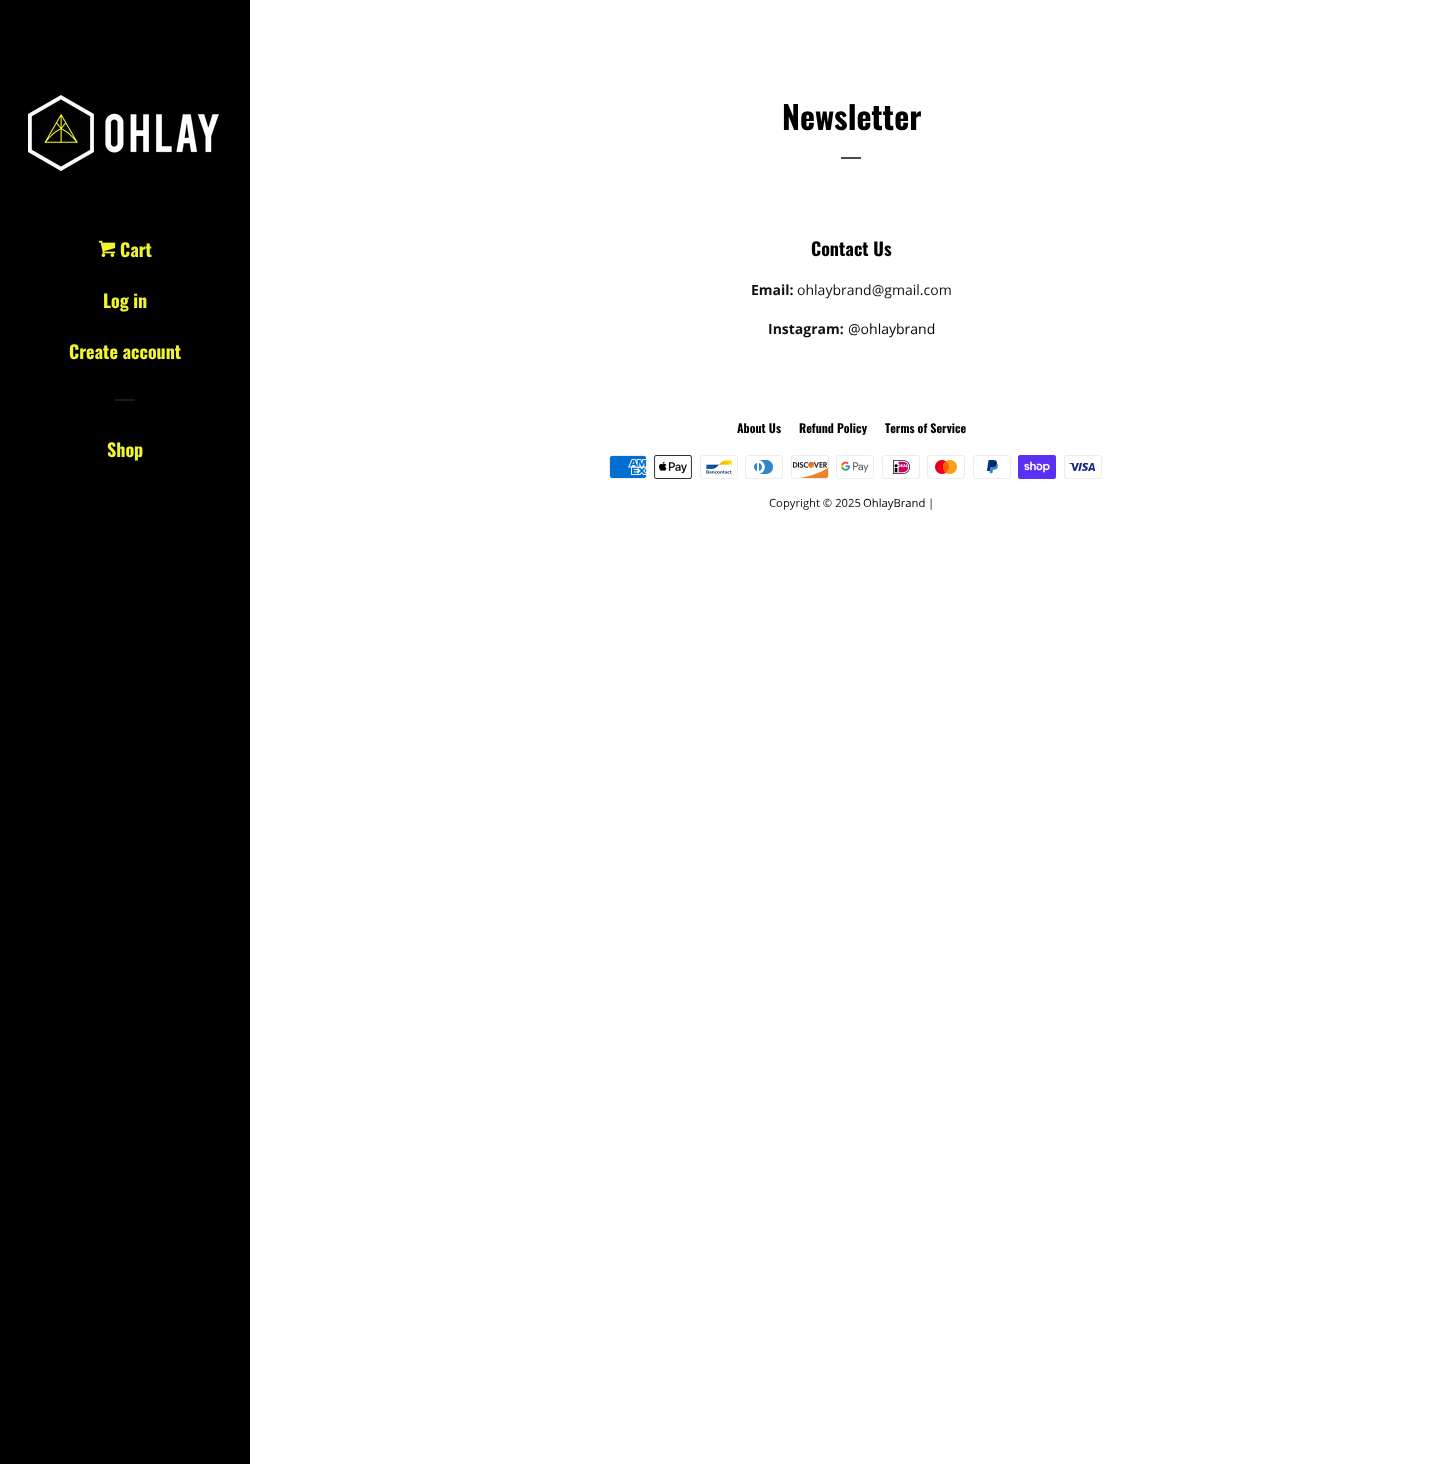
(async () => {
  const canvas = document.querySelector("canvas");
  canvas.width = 1453;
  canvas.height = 1464;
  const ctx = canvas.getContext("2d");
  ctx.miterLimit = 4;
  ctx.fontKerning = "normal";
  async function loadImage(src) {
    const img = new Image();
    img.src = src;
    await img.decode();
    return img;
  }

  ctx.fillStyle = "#000000";
  ctx.fillRect(0, 0, 1453, 1464);
  ctx.drawImage(await loadImage("img/1.png"), 28, 95, 191, 76);
  ctx.drawImage(await loadImage("img/2.png"), 98, 240, 18, 17);
  for (const [x, y, w, h, color] of [
    [115, 399, 20, 2, "#1a1a1a"],
    [250, 0, 1203, 1464, "#ffffff"],
    [841, 157, 20, 2, "#4a4a4a"],
  ]) {
    ctx.fillStyle = color;
    ctx.fillRect(x, y, w, h);
  }
  ctx.drawImage(await loadImage("img/3.png"), 609, 455, 38, 24);
  ctx.drawImage(await loadImage("img/4.png"), 654, 455, 38, 24);
  ctx.drawImage(await loadImage("img/5.png"), 700, 455, 38, 24);
  ctx.drawImage(await loadImage("img/6.png"), 745, 455, 38, 24);
  ctx.drawImage(await loadImage("img/7.png"), 791, 455, 38, 24);
  ctx.drawImage(await loadImage("img/8.png"), 836, 455, 38, 24);
  ctx.drawImage(await loadImage("img/9.png"), 882, 455, 38, 24);
  ctx.drawImage(await loadImage("img/10.png"), 927, 455, 38, 24);
  ctx.drawImage(await loadImage("img/11.png"), 973, 455, 38, 24);
  ctx.drawImage(await loadImage("img/12.png"), 1018, 455, 38, 24);
  ctx.drawImage(await loadImage("img/13.png"), 1064, 455, 38, 24);
  ctx.font = "bold 18px Oswald";
  ctx.fillStyle = "#f1f52f";
  for (const [text, x, y] of [
    ["Cart", 120, 257],
    ["Log in", 103, 308],
    ["Create account", 69, 359],
    ["Shop", 107, 457],
  ]) {
    ctx.fillText(text, x, y);
  }
  ctx.font = "bold 32px Oswald";
  ctx.fillStyle = "#000000";
  ctx.fillText("Newsletter", 782, 130);
  ctx.font = "bold 18px Oswald";
  ctx.fillText("Contact Us", 811, 256);
  ctx.font = "bold 14px Open Sans";
  ctx.fillStyle = "#111111";
  ctx.fillText("Email:", 751, 295);
  ctx.font = "14px Open Sans";
  ctx.fillText("ohlaybrand@gmail.com", 797, 295);
  ctx.font = "bold 14px Open Sans";
  ctx.fillText("Instagram:", 768, 334);
  ctx.font = "14px Open Sans";
  ctx.fillStyle = "#000000";
  ctx.fillText("@ohlaybrand", 848, 334);
  ctx.font = "bold 12px Oswald";
  for (const [text, x, y] of [
    ["About Us", 737, 433],
    ["Refund Policy", 799, 433],
    ["Terms of Service", 885, 433],
  ]) {
    ctx.fillText(text, x, y);
  }
  ctx.font = "11.25px Open Sans";
  ctx.fillStyle = "#111111";
  ctx.fillText("Copyright © 2025", 769, 507);
  ctx.fillStyle = "#000000";
  ctx.fillText("OhlayBrand", 863, 507);
  ctx.fillStyle = "#111111";
  ctx.fillText("|", 928, 507);
})();
